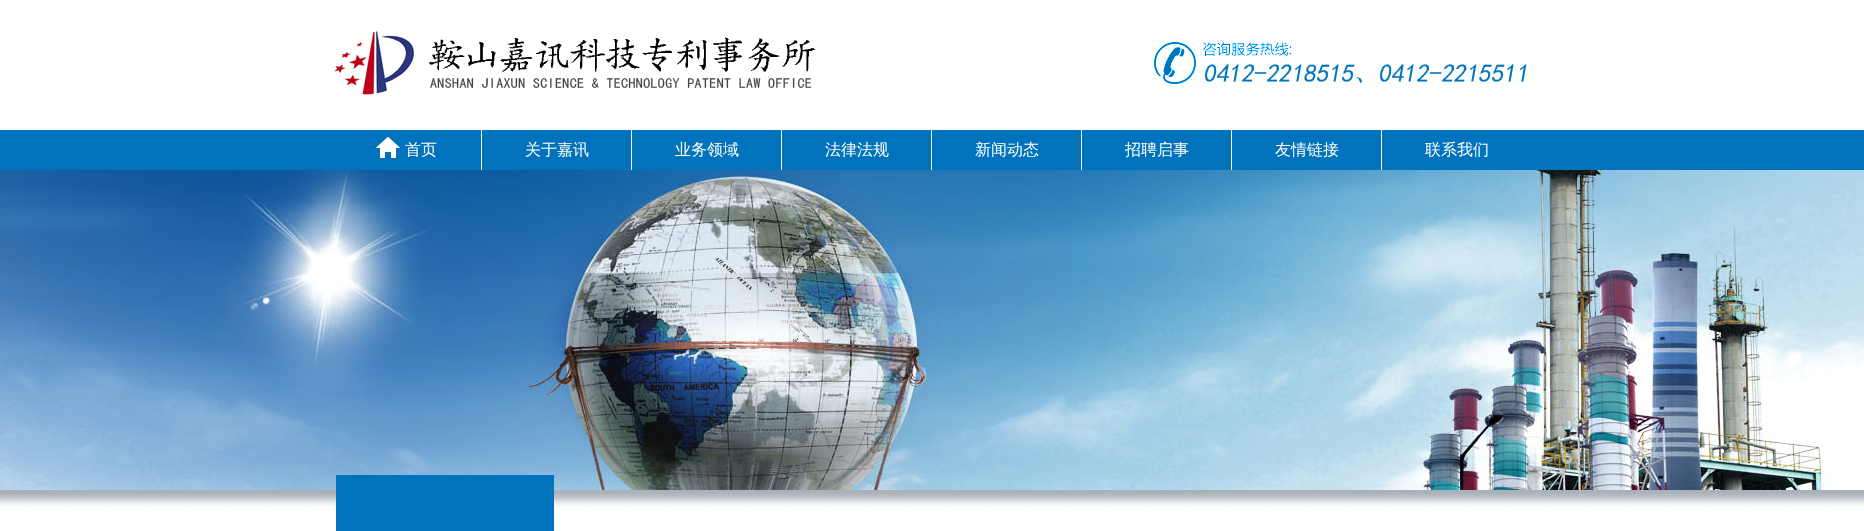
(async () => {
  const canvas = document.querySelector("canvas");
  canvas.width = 1864;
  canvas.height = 531;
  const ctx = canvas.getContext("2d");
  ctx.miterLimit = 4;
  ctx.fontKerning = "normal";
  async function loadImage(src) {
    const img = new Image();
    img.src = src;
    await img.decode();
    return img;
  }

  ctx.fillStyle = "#ffffff";
  ctx.fillRect(0, 0, 1864, 531);
  ctx.fillStyle = "#0173bc";
  ctx.fillRect(0, 130, 1864, 40);
  ctx.drawImage(await loadImage("img/1.png"), 334, 31, 482, 64);
  ctx.drawImage(await loadImage("img/2.png"), 1154, 42, 373, 47);
  ctx.drawImage(await loadImage("img/3.png"), 376, 136, 24, 22);
  for (const [x, y, w, h, color] of [
    [481, 130, 1, 40, "#ffffff"],
    [631, 130, 1, 40, "#ffffff"],
    [781, 130, 1, 40, "#ffffff"],
    [931, 130, 1, 40, "#ffffff"],
    [1081, 130, 1, 40, "#ffffff"],
    [1231, 130, 1, 40, "#ffffff"],
    [1381, 130, 1, 40, "#ffffff"],
  ]) {
    ctx.fillStyle = color;
    ctx.fillRect(x, y, w, h);
  }
  ctx.drawImage(await loadImage("img/4.png"), 0, 170, 1864, 320);
  ctx.drawImage(await loadImage("img/5.png"), 0, 490, 1864, 17);
  ctx.fillStyle = "#0173bc";
  ctx.fillRect(336, 475, 218, 56);
  ctx.font = "500 16px WenQuanYi Zen Hei";
  ctx.fillStyle = "#ffffff";
  for (const [text, x, y] of [
    ["首页", 405, 155],
    ["关于嘉讯", 525, 155],
    ["业务领域", 675, 155],
    ["法律法规", 825, 155],
    ["新闻动态", 975, 155],
    ["招聘启事", 1125, 155],
    ["友情链接", 1275, 155],
    ["联系我们", 1425, 155],
  ]) {
    ctx.fillText(text, x, y);
  }
})();
